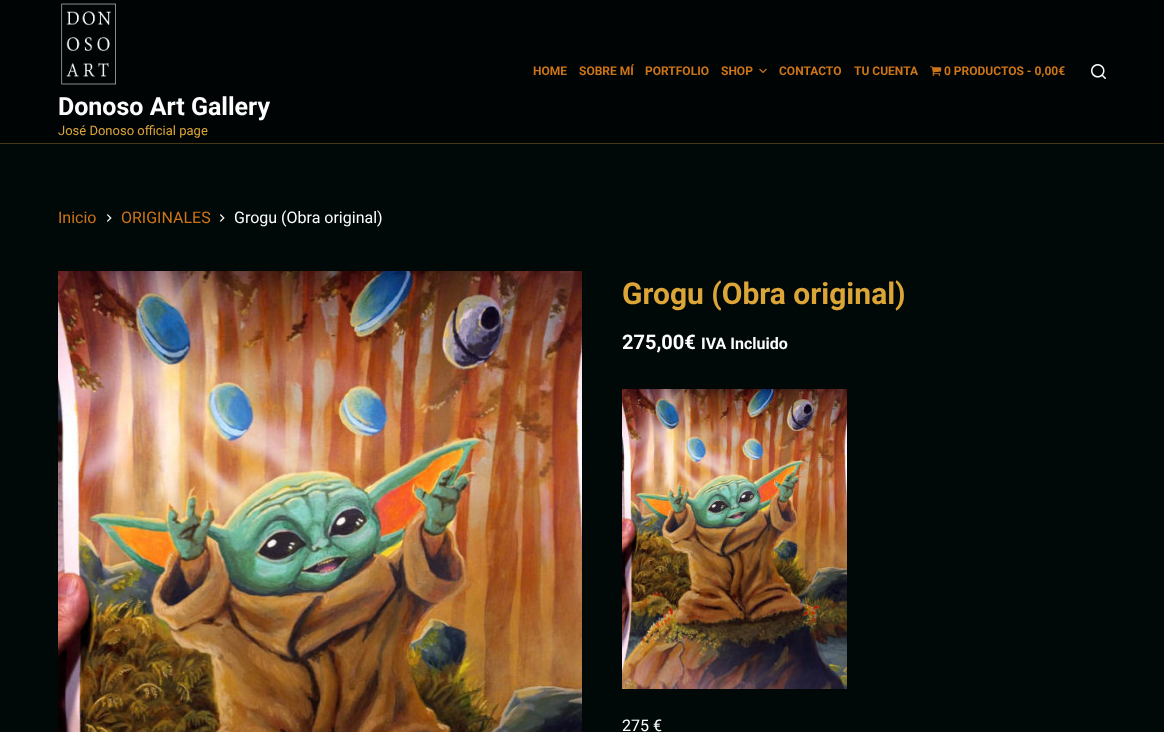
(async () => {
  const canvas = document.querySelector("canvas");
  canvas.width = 1164;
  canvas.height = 732;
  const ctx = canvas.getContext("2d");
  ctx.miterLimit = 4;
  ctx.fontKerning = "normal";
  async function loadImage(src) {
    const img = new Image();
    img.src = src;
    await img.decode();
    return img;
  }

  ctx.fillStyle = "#000808";
  ctx.fillRect(0, 0, 1164, 732);
  ctx.fillStyle = "#000405";
  ctx.fillRect(0, 0, 1164, 143);
  ctx.fillStyle = "#463815";
  ctx.fillRect(0, 143, 1164, 1);
  ctx.drawImage(await loadImage("img/1.png"), 759, 68, 8, 6);
  ctx.drawImage(await loadImage("img/2.png"), 930, 66, 12, 10);
  ctx.drawImage(await loadImage("img/3.png"), 1091, 64, 15, 15);
  ctx.drawImage(await loadImage("img/4.png"), 61, 3, 55, 82);
  ctx.drawImage(await loadImage("img/5.png"), 107, 214, 5, 8);
  ctx.drawImage(await loadImage("img/5.png"), 220, 214, 5, 8);
  ctx.drawImage(await loadImage("img/6.png"), 58, 271, 524, 461);
  ctx.drawImage(await loadImage("img/7.png"), 622, 389, 225, 300);
  ctx.font = "bold 12px Roboto";
  ctx.fillStyle = "#cd7518";
  for (const [text, x, y] of [
    ["HOME", 533, 75],
    ["SOBRE MÍ", 579, 75],
    ["PORTFOLIO", 645, 75],
    ["SHOP", 721, 75],
    ["CONTACTO", 779, 75],
    ["TU CUENTA", 854, 75],
    ["0 PRODUCTOS - 0,00€", 944, 75],
  ]) {
    ctx.fillText(text, x, y);
  }
  ctx.font = "bold 25px Roboto";
  ctx.fillStyle = "#fdfdfd";
  ctx.fillText("Donoso Art Gallery", 58, 115);
  ctx.font = "13px Roboto";
  ctx.fillStyle = "#dca538";
  ctx.fillText("José Donoso official page", 58, 135);
  ctx.font = "16px Roboto";
  ctx.fillStyle = "#cd7518";
  ctx.fillText("Inicio", 58, 223);
  ctx.fillText("ORIGINALES", 121, 223);
  ctx.fillStyle = "#fdfdfd";
  ctx.fillText("Grogu (Obra original)", 234, 223);
  ctx.font = "bold 30px Roboto";
  ctx.fillStyle = "#dca538";
  ctx.fillText("Grogu (Obra original)", 622, 304);
  ctx.font = "bold 20px Roboto";
  ctx.fillStyle = "#fdfdfd";
  ctx.fillText("275,00€", 622, 349);
  ctx.font = "bold 16px Roboto";
  ctx.fillText("IVA Incluido", 701, 349);
  ctx.font = "16px Roboto";
  ctx.fillText("275 €", 622, 731);
})();
